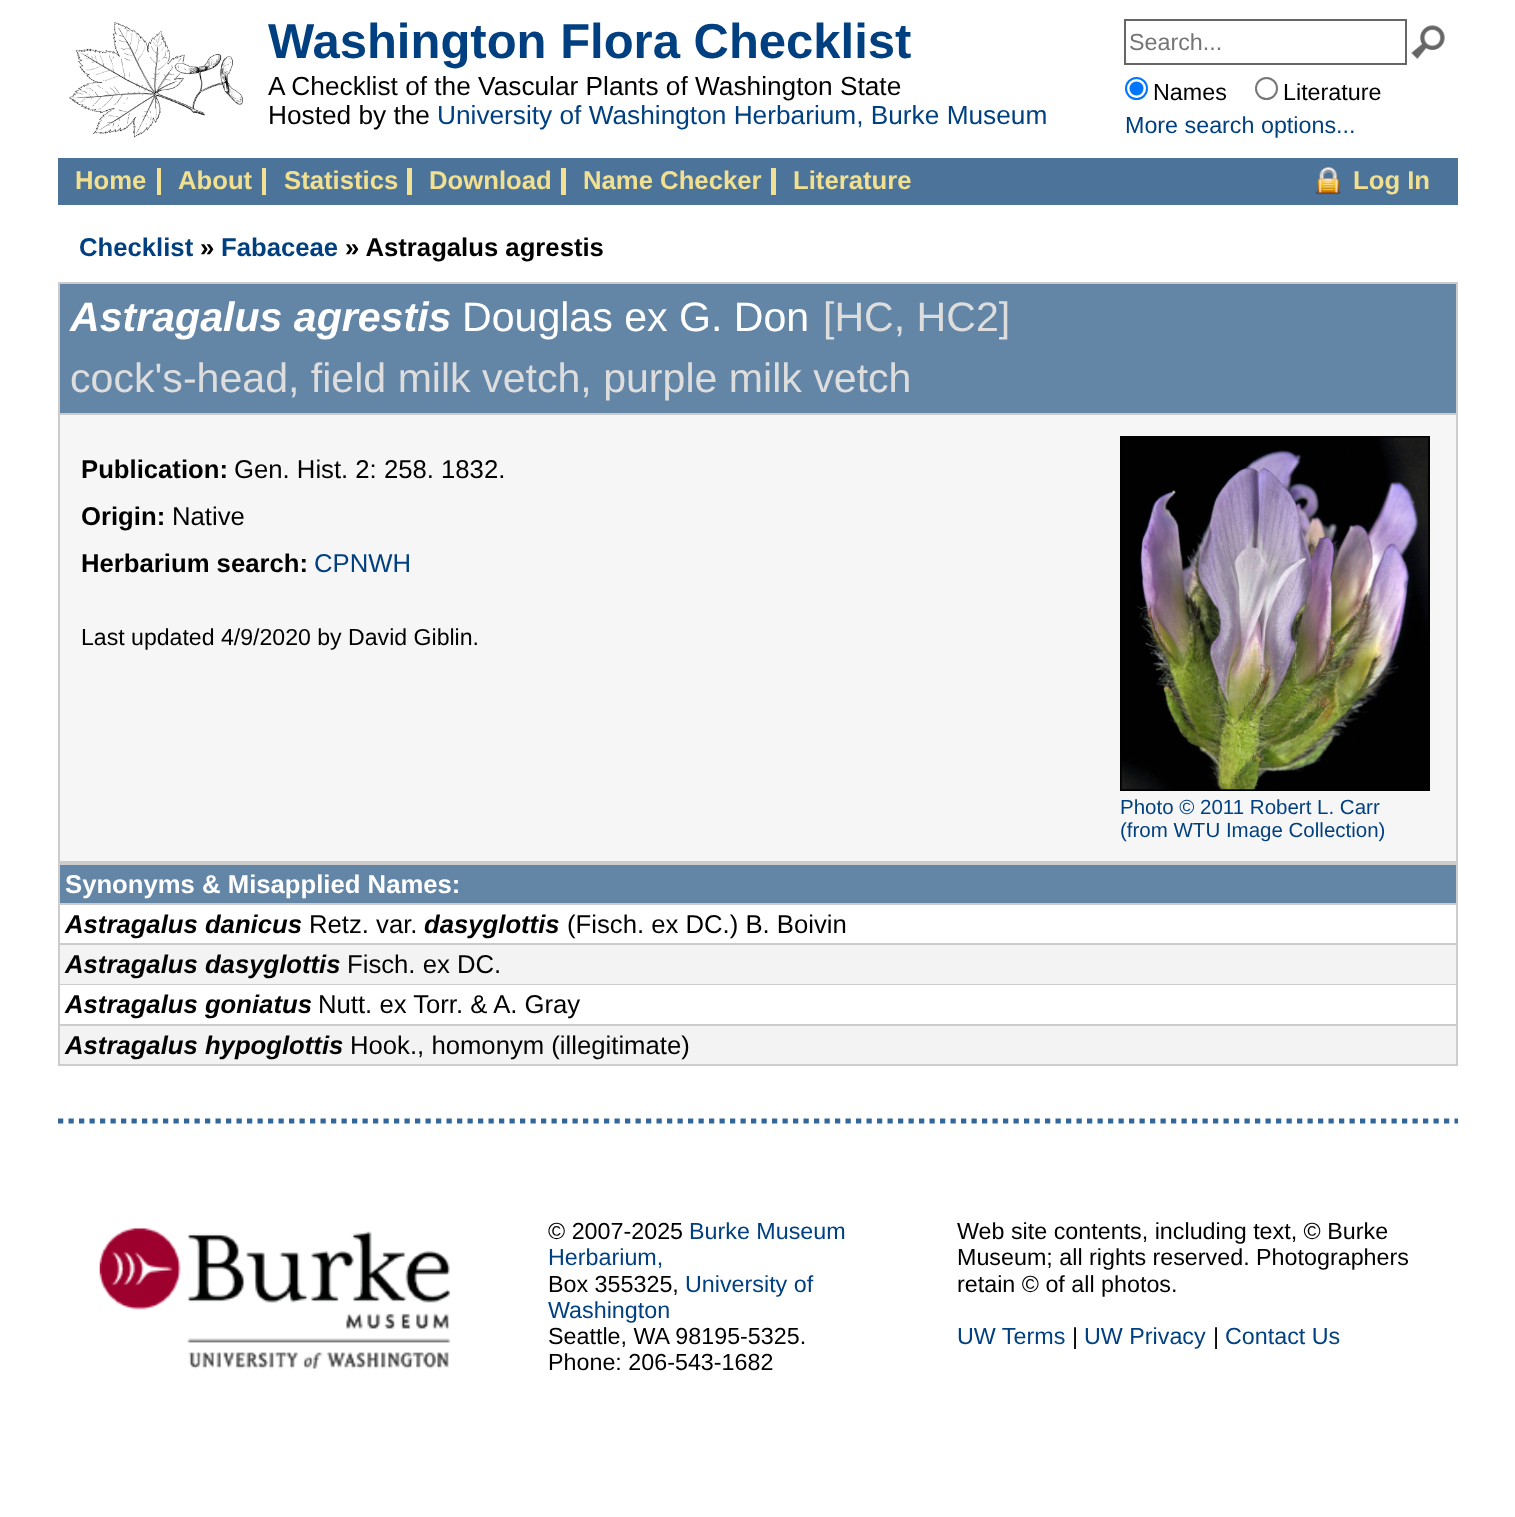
(async () => {
  const canvas = document.querySelector("canvas");
  canvas.width = 1515;
  canvas.height = 1517;
  const ctx = canvas.getContext("2d");
  ctx.miterLimit = 4;
  ctx.fontKerning = "normal";
  async function loadImage(src) {
    const img = new Image();
    img.src = src;
    await img.decode();
    return img;
  }
  let path;

  ctx.fillStyle = "#ffffff";
  ctx.fillRect(0, 0, 1515, 1517);
  ctx.drawImage(await loadImage("img/1.png"), 69, 21, 175, 117);
  ctx.strokeStyle = "#666666";
  ctx.lineWidth = 2;
  ctx.strokeRect(1125, 20, 281, 44);
  ctx.drawImage(await loadImage("img/2.png"), 1411, 25, 34, 34);
  ctx.beginPath();
  ctx.arc(1136.5, 88.5, 10.5, 0, Math.PI * 2);
  ctx.strokeStyle = "#0075ff";
  ctx.stroke();
  ctx.fillStyle = "#0075ff";
  ctx.beginPath();
  ctx.arc(1136.5, 88.5, 7, 0, Math.PI * 2);
  ctx.fill();
  ctx.beginPath();
  ctx.arc(1266.5, 88.5, 10.5, 0, Math.PI * 2);
  ctx.strokeStyle = "#767676";
  ctx.stroke();
  for (const [x, y, w, h, color] of [
    [58, 158, 1400, 47, "#4c7399"],
    [157, 168, 4, 27, "#f2e192"],
    [262, 168, 4, 27, "#f2e192"],
    [407, 168, 5, 27, "#f2e192"],
    [561, 168, 5, 27, "#f2e192"],
    [771, 168, 5, 27, "#f2e192"],
  ]) {
    ctx.fillStyle = color;
    ctx.fillRect(x, y, w, h);
  }
  ctx.drawImage(await loadImage("img/3.png"), 1315, 167, 27, 28);
  ctx.strokeStyle = "#cccccc";
  ctx.strokeRect(59, 283, 1398, 579);
  for (const [x, y, w, h, color] of [
    [60, 284, 1396, 129, "#6385a6"],
    [60, 413, 1396, 2, "#cccccc"],
    [60, 415, 1396, 446, "#f6f6f6"],
  ]) {
    ctx.fillStyle = color;
    ctx.fillRect(x, y, w, h);
  }
  ctx.strokeStyle = "#000000";
  ctx.strokeRect(1121, 437, 308, 353);
  ctx.drawImage(await loadImage("img/4.png"), 1121, 437, 307, 353);
  ctx.strokeStyle = "#cccccc";
  ctx.strokeRect(59, 864, 1398, 201);
  for (const [x, y, w, h, color] of [
    [60, 865, 1396, 38, "#6385a6"],
    [60, 903, 1396, 2, "#cccccc"],
    [60, 945, 1396, 39, "#f3f3f3"],
    [60, 943, 1396, 2, "#cccccc"],
    [60, 984, 1396, 1, "#cccccc"],
    [60, 1026, 1396, 38, "#f3f3f3"],
    [60, 1024, 1396, 2, "#cccccc"],
  ]) {
    ctx.fillStyle = color;
    ctx.fillRect(x, y, w, h);
  }
  path = new Path2D("M58 1121H1458");
  ctx.strokeStyle = "#336699";
  ctx.lineWidth = 5.2;
  ctx.setLineDash([5.25, 5.25]);
  ctx.stroke(path);
  ctx.drawImage(await loadImage("img/5.png"), 99, 1228, 351, 141);
  ctx.font = "bold 49px Liberation Sans";
  ctx.fillStyle = "#004080";
  ctx.fillText("Washington Flora Checklist", 268, 58);
  ctx.font = "26.25px Liberation Sans";
  ctx.fillStyle = "#000000";
  ctx.fillText("A Checklist of the Vascular Plants of Washington State", 268, 95);
  ctx.fillText("Hosted by the", 268, 124);
  ctx.fillStyle = "#004080";
  ctx.fillText("University of Washington Herbarium, Burke Museum", 437, 124);
  ctx.font = "23.3px Liberation Sans";
  ctx.fillStyle = "#757575";
  ctx.fillText("Search...", 1129, 50);
  ctx.fillStyle = "#000000";
  ctx.fillText("Names", 1153, 100);
  ctx.fillText("Literature", 1283, 100);
  ctx.fillStyle = "#004080";
  ctx.fillText("More search options...", 1125, 133);
  ctx.font = "bold 25.7px Liberation Sans";
  ctx.fillStyle = "#f2e091";
  for (const [text, x, y] of [
    ["Home", 75, 189],
    ["About", 178, 189],
    ["Statistics", 284, 189],
    ["Download", 429, 189],
    ["Name Checker", 583, 189],
    ["Literature", 793, 189],
    ["Log In", 1353, 189],
  ]) {
    ctx.fillText(text, x, y);
  }
  ctx.fillStyle = "#004080";
  ctx.fillText("Checklist", 79, 256);
  ctx.fillStyle = "#000000";
  ctx.fillText("»", 200, 256);
  ctx.fillStyle = "#004080";
  ctx.fillText("Fabaceae", 221, 256);
  ctx.fillStyle = "#000000";
  ctx.fillText("» Astragalus agrestis", 345, 256);
  ctx.font = "italic bold 41.1px Liberation Sans";
  ctx.fillStyle = "#ffffff";
  ctx.fillText("Astragalus agrestis", 70, 331);
  ctx.font = "41.1px Liberation Sans";
  ctx.fillText("Douglas ex G. Don", 462, 331);
  ctx.fillStyle = "#dddddd";
  ctx.fillText("[HC, HC2]", 823, 331);
  ctx.fillText("cock's-head, field milk vetch, purple milk vetch", 70, 392);
  ctx.font = "bold 25.7px Liberation Sans";
  ctx.fillStyle = "#000000";
  ctx.fillText("Publication:", 81, 478);
  ctx.font = "25.7px Liberation Sans";
  ctx.fillText("Gen. Hist. 2: 258. 1832.", 234, 478);
  ctx.font = "bold 25.7px Liberation Sans";
  ctx.fillText("Origin:", 81, 525);
  ctx.font = "25.7px Liberation Sans";
  ctx.fillText("Native", 172, 525);
  ctx.font = "bold 25.7px Liberation Sans";
  ctx.fillText("Herbarium search:", 81, 572);
  ctx.font = "25.7px Liberation Sans";
  ctx.fillStyle = "#004080";
  ctx.fillText("CPNWH", 314, 572);
  ctx.font = "23.1px Liberation Sans";
  ctx.fillStyle = "#000000";
  ctx.fillText("Last updated 4/9/2020 by David Giblin.", 81, 645);
  ctx.font = "20.5px Liberation Sans";
  ctx.fillStyle = "#004080";
  ctx.fillText("Photo © 2011 Robert L. Carr", 1120, 814);
  ctx.fillText("(from WTU Image Collection)", 1120, 837);
  ctx.font = "bold 25.7px Liberation Sans";
  ctx.fillStyle = "#ffffff";
  ctx.fillText("Synonyms & Misapplied Names:", 65, 893);
  ctx.font = "italic bold 25.7px Liberation Sans";
  ctx.fillStyle = "#000000";
  ctx.fillText("Astragalus danicus", 65, 933);
  ctx.font = "25.7px Liberation Sans";
  ctx.fillText("Retz. var.", 309, 933);
  ctx.font = "italic bold 25.7px Liberation Sans";
  ctx.fillText("dasyglottis", 424, 933);
  ctx.font = "25.7px Liberation Sans";
  ctx.fillText("(Fisch. ex DC.) B. Boivin", 567, 933);
  ctx.font = "italic bold 25.7px Liberation Sans";
  ctx.fillText("Astragalus dasyglottis", 65, 973);
  ctx.font = "25.7px Liberation Sans";
  ctx.fillText("Fisch. ex DC.", 347, 973);
  ctx.font = "italic bold 25.7px Liberation Sans";
  ctx.fillText("Astragalus goniatus", 65, 1013);
  ctx.font = "25.7px Liberation Sans";
  ctx.fillText("Nutt. ex Torr. & A. Gray", 318, 1013);
  ctx.font = "italic bold 25.7px Liberation Sans";
  ctx.fillText("Astragalus hypoglottis", 65, 1054);
  ctx.font = "25.7px Liberation Sans";
  ctx.fillText("Hook., homonym (illegitimate)", 350, 1054);
  ctx.font = "23.3px Liberation Sans";
  ctx.fillText("© 2007-2025", 548, 1239);
  ctx.fillStyle = "#004080";
  ctx.fillText("Burke Museum", 689, 1239);
  ctx.fillText("Herbarium,", 548, 1265);
  ctx.fillStyle = "#000000";
  ctx.fillText("Box 355325,", 548, 1292);
  ctx.fillStyle = "#004080";
  ctx.fillText("University of", 685, 1292);
  ctx.fillText("Washington", 548, 1318);
  ctx.fillStyle = "#000000";
  for (const [text, x, y] of [
    ["Seattle, WA 98195-5325.", 548, 1344],
    ["Phone: 206-543-1682", 548, 1370],
    ["Web site contents, including text, © Burke", 957, 1239],
    ["Museum; all rights reserved. Photographers", 957, 1265],
    ["retain © of all photos.", 957, 1292],
  ]) {
    ctx.fillText(text, x, y);
  }
  ctx.fillStyle = "#004080";
  ctx.fillText("UW Terms", 957, 1344);
  ctx.fillStyle = "#000000";
  ctx.fillText("|", 1072, 1344);
  ctx.fillStyle = "#004080";
  ctx.fillText("UW Privacy", 1084, 1344);
  ctx.fillStyle = "#000000";
  ctx.fillText("|", 1213, 1344);
  ctx.fillStyle = "#004080";
  ctx.fillText("Contact Us", 1225, 1344);
})();
